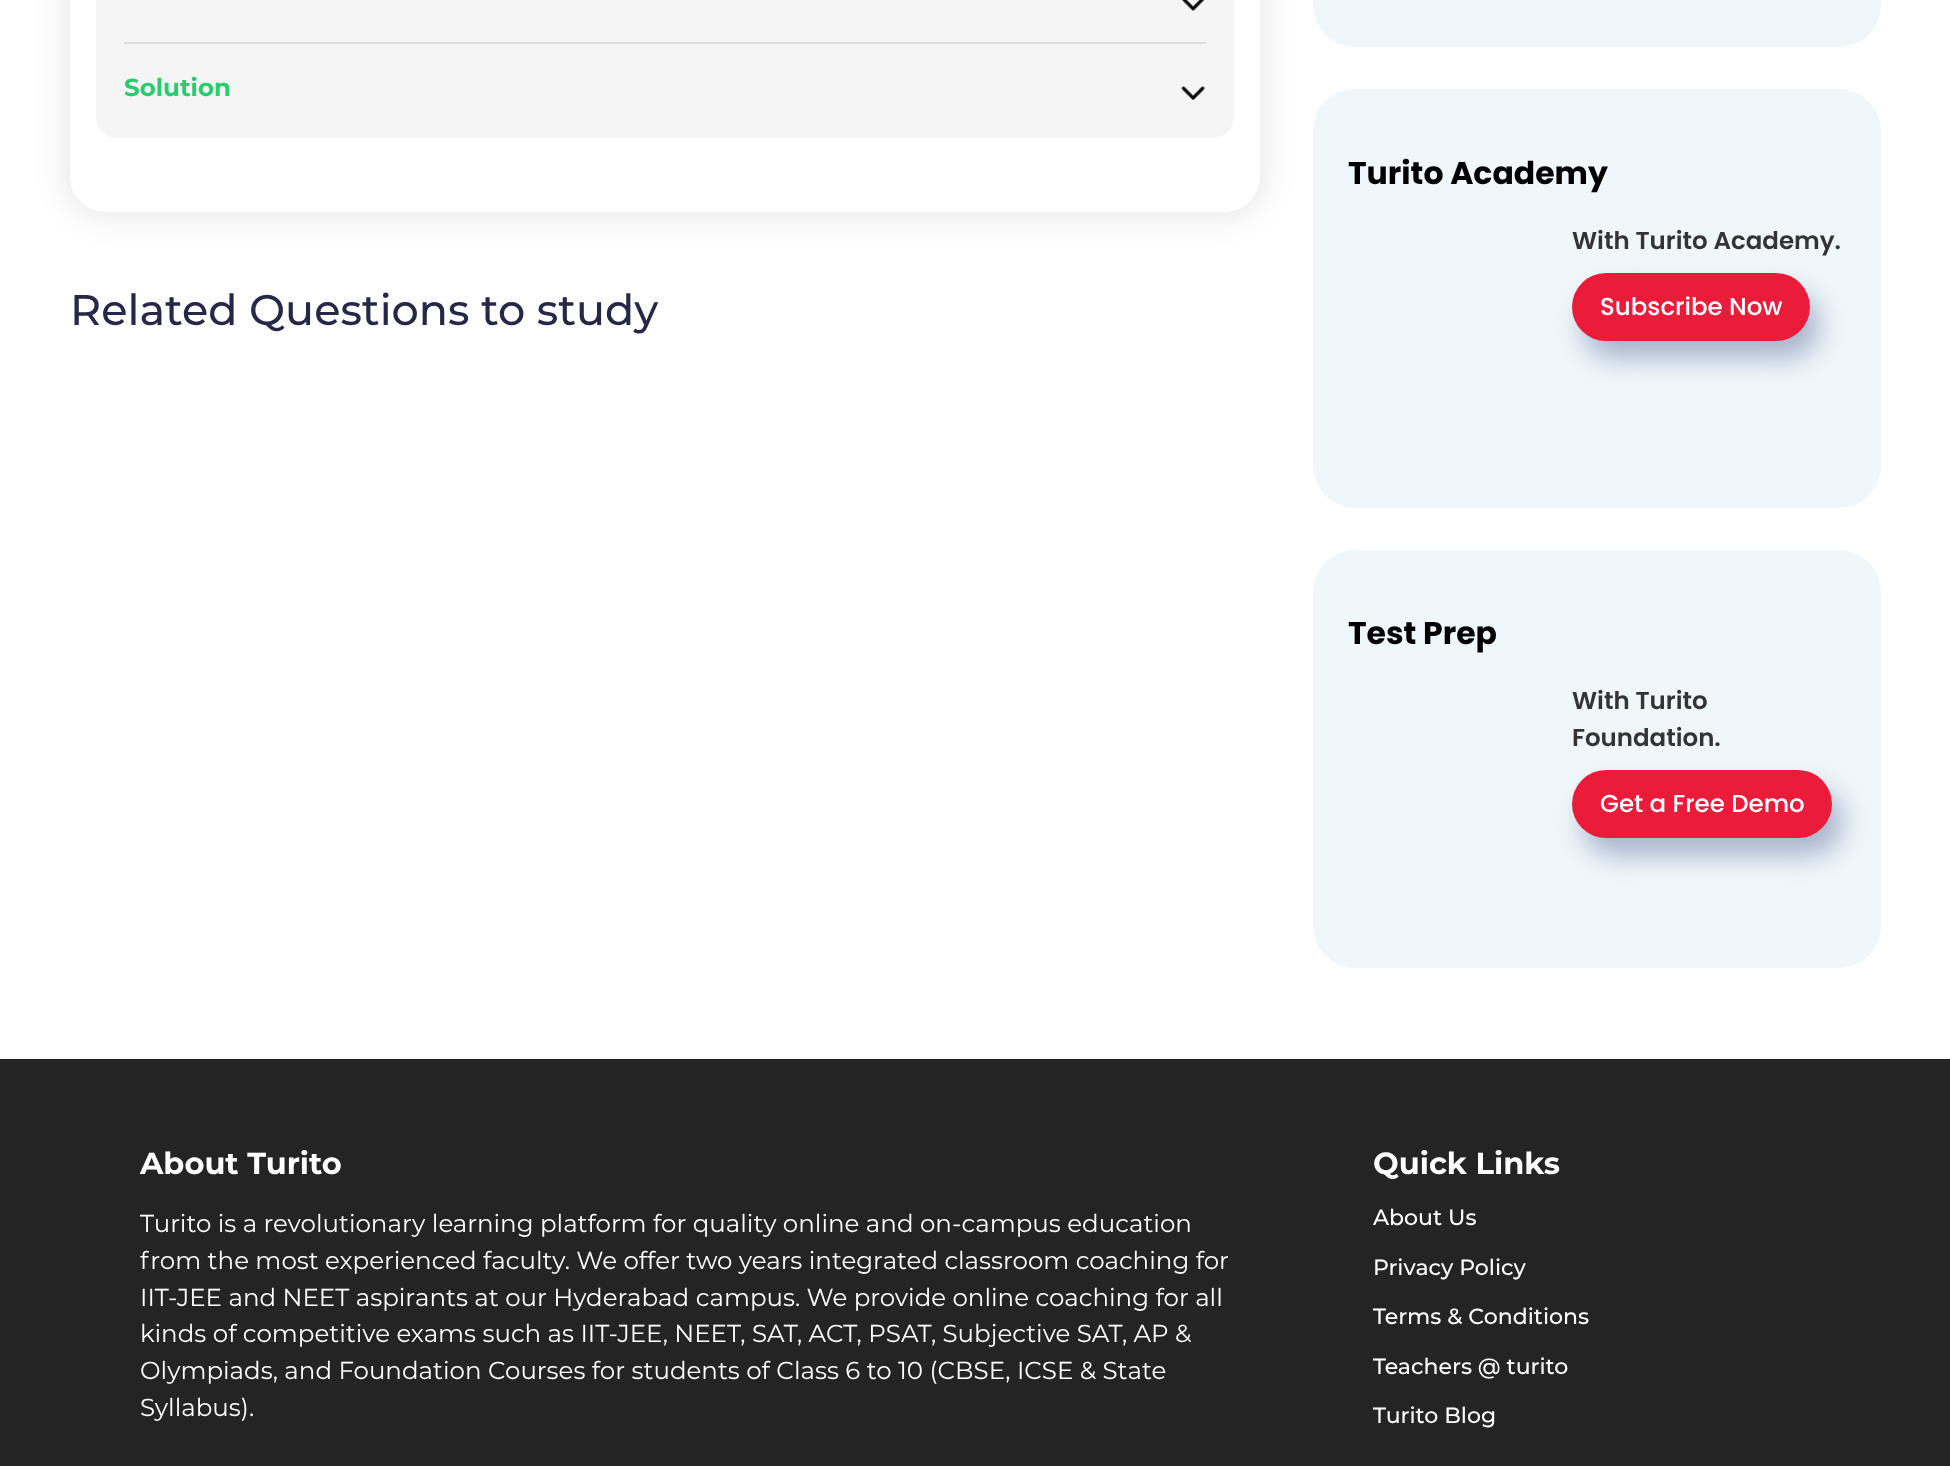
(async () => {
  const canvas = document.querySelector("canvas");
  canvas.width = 1950;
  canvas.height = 1466;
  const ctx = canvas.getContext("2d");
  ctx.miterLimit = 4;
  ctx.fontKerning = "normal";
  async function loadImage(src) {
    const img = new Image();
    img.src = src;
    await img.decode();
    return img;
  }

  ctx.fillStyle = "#ffffff";
  ctx.fillRect(0, 0, 1950, 1466);
  ctx.fillStyle = "rgba(0, 0, 0, 0.12)";
  ctx.filter = "blur(17.5px)";
  ctx.beginPath();
  ctx.roundRect(70, -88, 1190, 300, 35);
  ctx.fill();
  ctx.filter = "none";
  ctx.fillStyle = "#ffffff";
  ctx.beginPath();
  ctx.roundRect(70, -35, 1190, 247, 35);
  ctx.fill();
  ctx.fillStyle = "#f5f5f5";
  ctx.beginPath();
  ctx.roundRect(96, -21, 1138, 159, 21);
  ctx.fill();
  ctx.drawImage(await loadImage("img/1.png"), 1182, 0, 23, 11);
  ctx.fillStyle = "#dddddd";
  ctx.fillRect(124, 42, 1082, 2);
  ctx.drawImage(await loadImage("img/2.png"), 1181, 86, 24, 14);
  ctx.fillStyle = "#eff7fa";
  ctx.beginPath();
  ctx.roundRect(1313, -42, 568, 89, 42);
  ctx.fill();
  ctx.beginPath();
  ctx.roundRect(1313, 89, 568, 419, 42);
  ctx.fill();
  ctx.fillStyle = "#aab5cd";
  ctx.filter = "blur(13px)";
  ctx.beginPath();
  ctx.roundRect(1582, 291, 238, 68, 34);
  ctx.fill();
  ctx.filter = "none";
  ctx.fillStyle = "#eb1b3a";
  ctx.beginPath();
  ctx.roundRect(1572, 273, 238, 68, 34);
  ctx.fill();
  ctx.fillStyle = "#eff7fa";
  ctx.beginPath();
  ctx.roundRect(1313, 550, 568, 418, 42);
  ctx.fill();
  ctx.fillStyle = "#aab5cd";
  ctx.filter = "blur(13px)";
  ctx.beginPath();
  ctx.roundRect(1582, 788, 261, 68, 34);
  ctx.fill();
  ctx.filter = "none";
  ctx.fillStyle = "#eb1b3a";
  ctx.beginPath();
  ctx.roundRect(1572, 770, 260, 68, 34);
  ctx.fill();
  ctx.fillStyle = "#242424";
  ctx.fillRect(0, 1059, 1950, 407);
  ctx.font = "bold 24.5px Montserrat";
  ctx.fillStyle = "#2bcb70";
  ctx.fillText("Solution", 124, 96);
  ctx.font = "500 42.9px Montserrat";
  ctx.fillStyle = "#272848";
  ctx.fillText("Related Questions to study", 70, 325);
  ctx.font = "bold 31.5px Poppins";
  ctx.fillStyle = "#000000";
  ctx.fillText("Turito Academy", 1348, 184);
  ctx.font = "600 24.5px Poppins";
  ctx.fillStyle = "#343434";
  ctx.fillText("With Turito Academy.", 1572, 249);
  ctx.font = "500 24.5px Poppins";
  ctx.fillStyle = "#ffffff";
  ctx.fillText("Subscribe Now", 1600, 315);
  ctx.font = "bold 31.5px Poppins";
  ctx.fillStyle = "#000000";
  ctx.fillText("Test Prep", 1348, 644);
  ctx.font = "600 24.5px Poppins";
  ctx.fillStyle = "#343434";
  ctx.fillText("With Turito", 1572, 709);
  ctx.fillText("Foundation.", 1572, 746);
  ctx.font = "500 24.5px Poppins";
  ctx.fillStyle = "#ffffff";
  ctx.fillText("Get a Free Demo", 1600, 812);
  ctx.font = "bold 30.5px Montserrat";
  ctx.fillText("About Turito", 140, 1174);
  ctx.font = "24.5px Montserrat";
  for (const [text, x, y] of [
    ["Turito is a revolutionary learning platform for quality online and on-campus education", 140, 1232],
    ["from the most experienced faculty. We offer two years integrated classroom coaching for", 140, 1269],
    ["IIT-JEE and NEET aspirants at our Hyderabad campus. We provide online coaching for all", 140, 1306],
    ["kinds of competitive exams such as IIT-JEE, NEET, SAT, ACT, PSAT, Subjective SAT, AP &", 140, 1342],
    ["Olympiads, and Foundation Courses for students of Class 6 to 10 (CBSE, ICSE & State", 140, 1379],
    ["Syllabus).", 140, 1416],
  ]) {
    ctx.fillText(text, x, y);
  }
  ctx.font = "bold 30.5px Montserrat";
  ctx.fillText("Quick Links", 1373, 1174);
  ctx.font = "500 22px Montserrat";
  for (const [text, x, y] of [
    ["About Us", 1373, 1225],
    ["Privacy Policy", 1373, 1275],
    ["Terms & Conditions", 1373, 1324],
    ["Teachers @ turito", 1373, 1374],
    ["Turito Blog", 1373, 1423],
  ]) {
    ctx.fillText(text, x, y);
  }
})();
